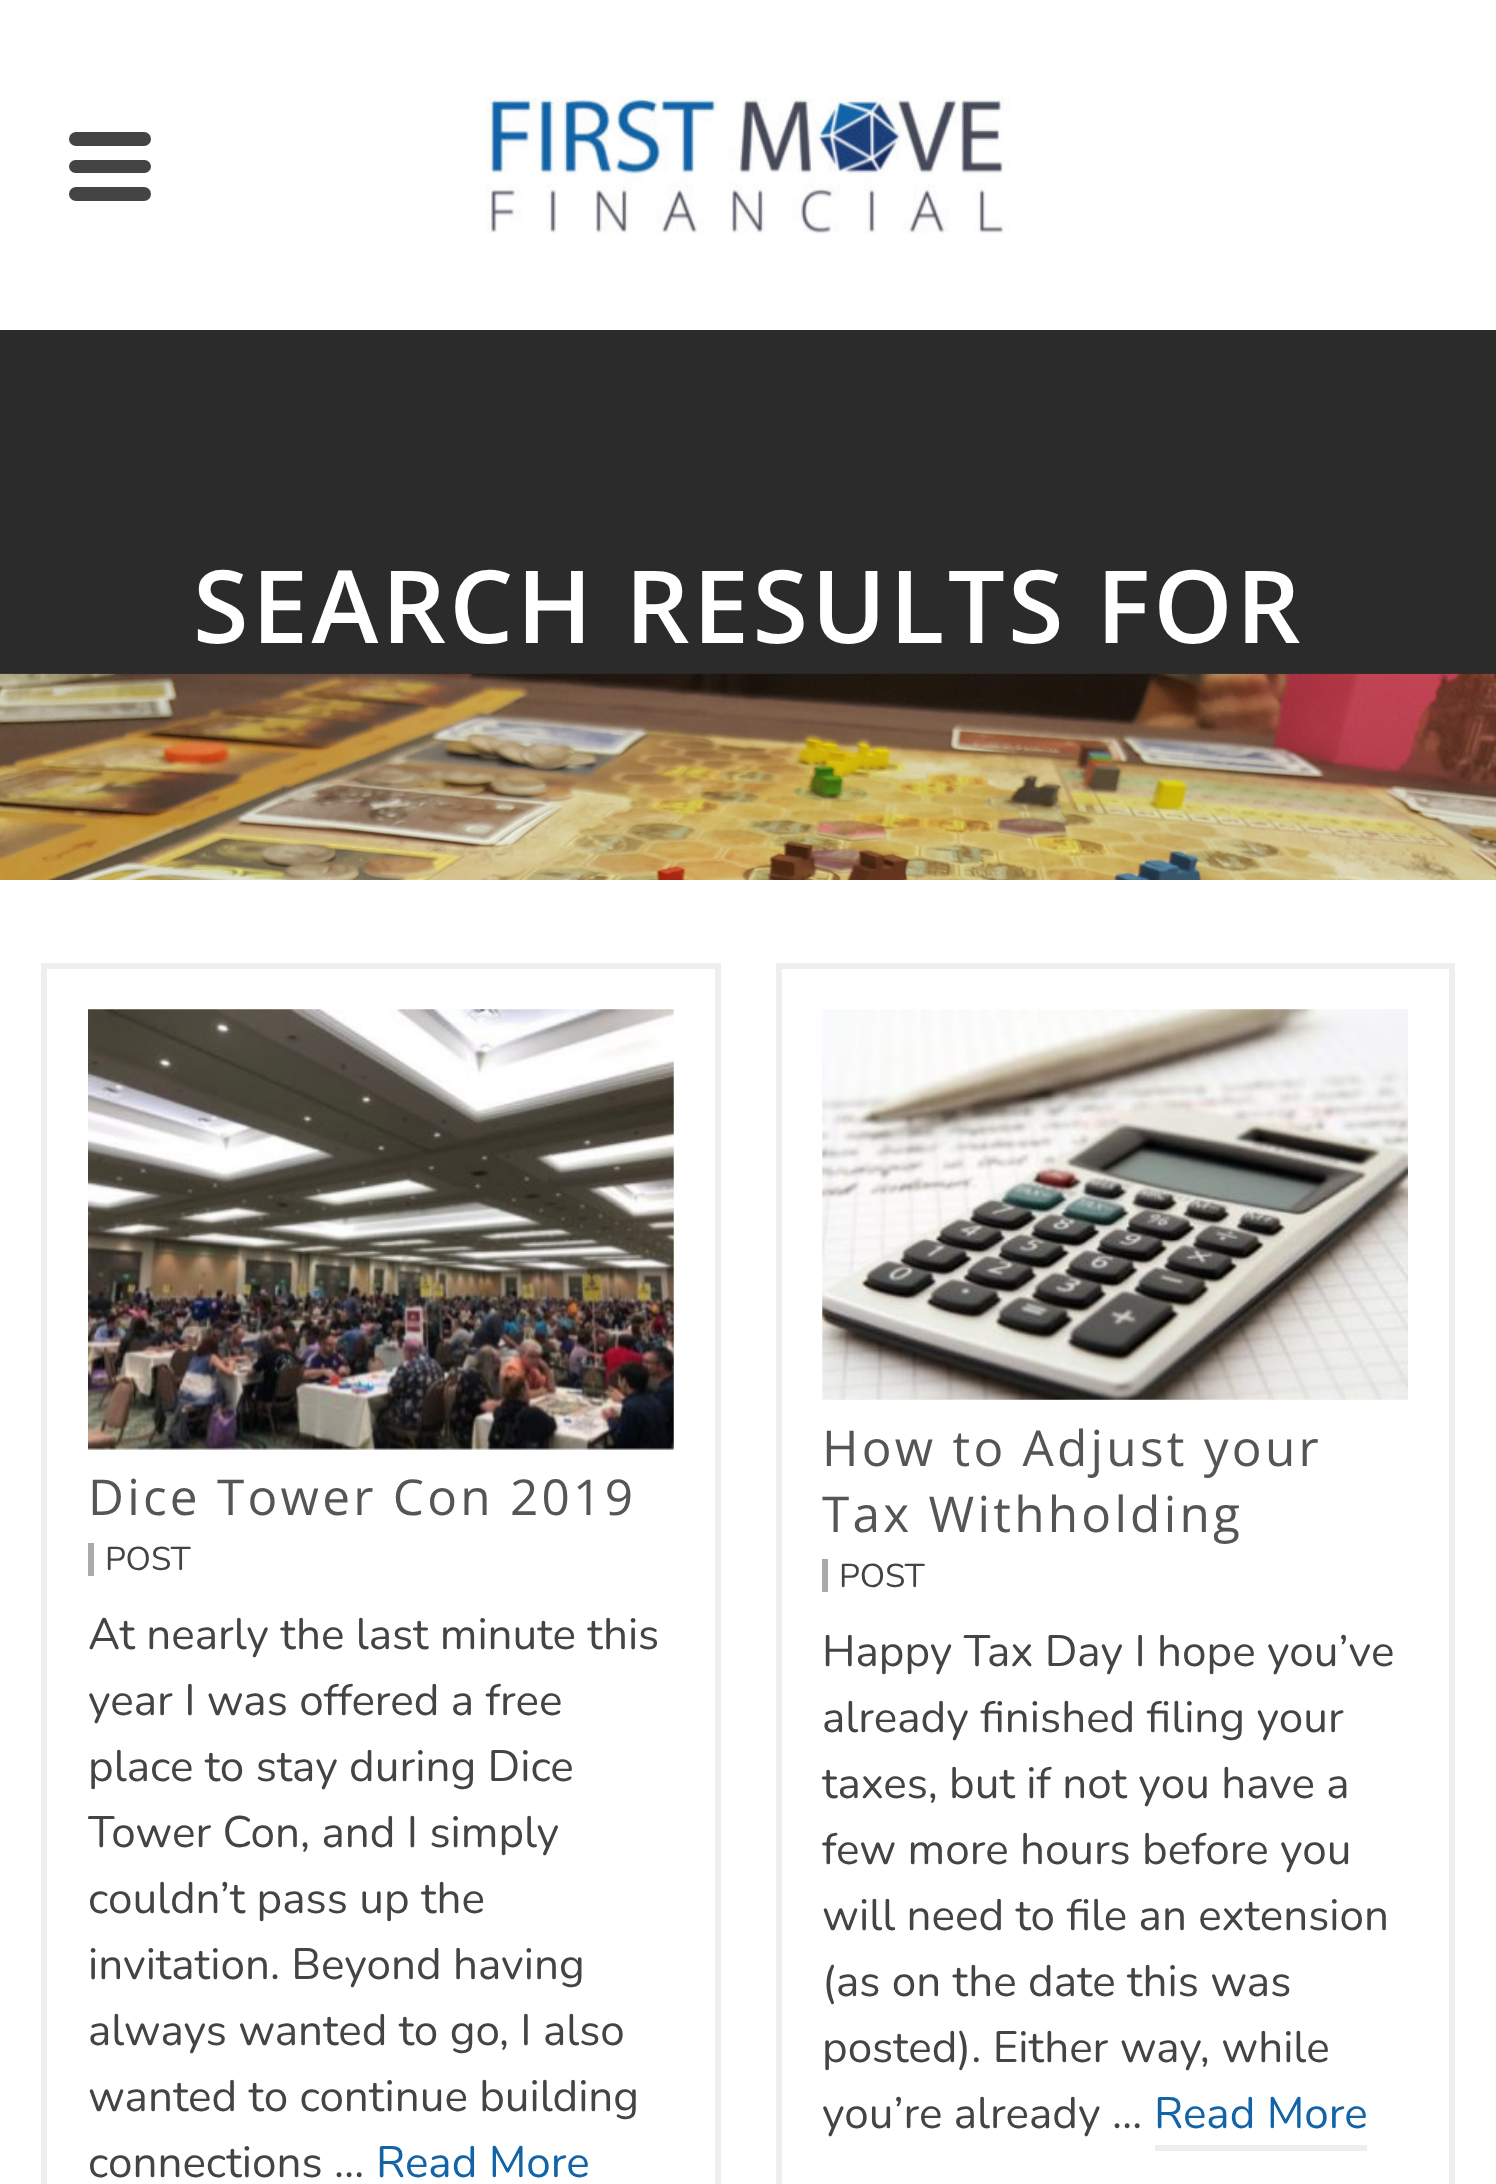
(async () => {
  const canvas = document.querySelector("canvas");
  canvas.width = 1496;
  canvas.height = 2184;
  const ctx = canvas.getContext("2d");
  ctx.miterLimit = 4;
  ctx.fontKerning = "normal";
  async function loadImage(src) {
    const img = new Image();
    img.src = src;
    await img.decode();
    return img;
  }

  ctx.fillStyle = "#ffffff";
  ctx.fillRect(0, 0, 1496, 2184);
  ctx.fillStyle = "#444444";
  ctx.beginPath();
  ctx.roundRect(69, 132, 82, 14, 7);
  ctx.fill();
  ctx.beginPath();
  ctx.roundRect(69, 160, 82, 13, 6.5);
  ctx.fill();
  ctx.beginPath();
  ctx.roundRect(69, 187, 82, 14, 7);
  ctx.fill();
  ctx.drawImage(await loadImage("img/1.png"), 485, 97, 526, 137);
  ctx.fillStyle = "#2b2b2b";
  ctx.fillRect(0, 330, 1496, 344);
  ctx.drawImage(await loadImage("img/2.png"), 0, 673, 1496, 207);
  ctx.strokeStyle = "#eeeeee";
  ctx.lineWidth = 6;
  ctx.strokeRect(44, 966, 674, 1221);
  ctx.drawImage(await loadImage("img/3.png"), 88, 1009, 586, 441);
  ctx.fillStyle = "#aaaaaa";
  ctx.fillRect(88, 1543, 6, 33);
  ctx.strokeRect(779, 966, 673, 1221);
  ctx.drawImage(await loadImage("img/4.png"), 822, 1009, 586, 391);
  ctx.fillRect(822, 1559, 6, 33);
  ctx.fillStyle = "#eeeeee";
  ctx.fillRect(1155, 2145, 212, 6);
  ctx.letterSpacing = "3.25px";
  ctx.font = "600 101px Open Sans";
  ctx.fillStyle = "#ffffff";
  ctx.fillText("SEARCH RESULTS FOR", 193, 643);
  ctx.font = "49.5px Open Sans";
  ctx.fillStyle = "#555555";
  ctx.fillText("Dice Tower Con 2019", 88, 1515);
  ctx.letterSpacing = "0px";
  ctx.font = "33px Nunito";
  ctx.fillStyle = "#444444";
  ctx.fillText("POST", 105, 1570);
  ctx.font = "44px Nunito";
  for (const [text, x, y] of [
    ["At nearly the last minute this", 88, 1649],
    ["year I was offered a free", 88, 1715],
    ["place to stay during Dice", 88, 1781],
    ["Tower Con, and I simply", 88, 1847],
    ["couldn’t pass up the", 88, 1913],
    ["invitation. Beyond having", 88, 1979],
    ["always wanted to go, I also", 88, 2045],
    ["wanted to continue building", 88, 2111],
    ["connections …", 88, 2177],
  ]) {
    ctx.fillText(text, x, y);
  }
  ctx.fillStyle = "#1364a6";
  ctx.fillText("Read More", 376, 2177);
  ctx.letterSpacing = "3.25px";
  ctx.font = "49.5px Open Sans";
  ctx.fillStyle = "#555555";
  ctx.fillText("How to Adjust your", 822, 1466);
  ctx.fillText("Tax Withholding", 822, 1532);
  ctx.letterSpacing = "0px";
  ctx.font = "33px Nunito";
  ctx.fillStyle = "#444444";
  ctx.fillText("POST", 839, 1587);
  ctx.font = "44px Nunito";
  for (const [text, x, y] of [
    ["Happy Tax Day I hope you’ve", 822, 1666],
    ["already finished filing your", 822, 1732],
    ["taxes, but if not you have a", 822, 1798],
    ["few more hours before you", 822, 1864],
    ["will need to file an extension", 822, 1930],
    ["(as on the date this was", 822, 1996],
    ["posted). Either way, while", 822, 2062],
    ["you’re already …", 822, 2128],
  ]) {
    ctx.fillText(text, x, y);
  }
  ctx.fillStyle = "#1364a6";
  ctx.fillText("Read More", 1154, 2128);
})();
